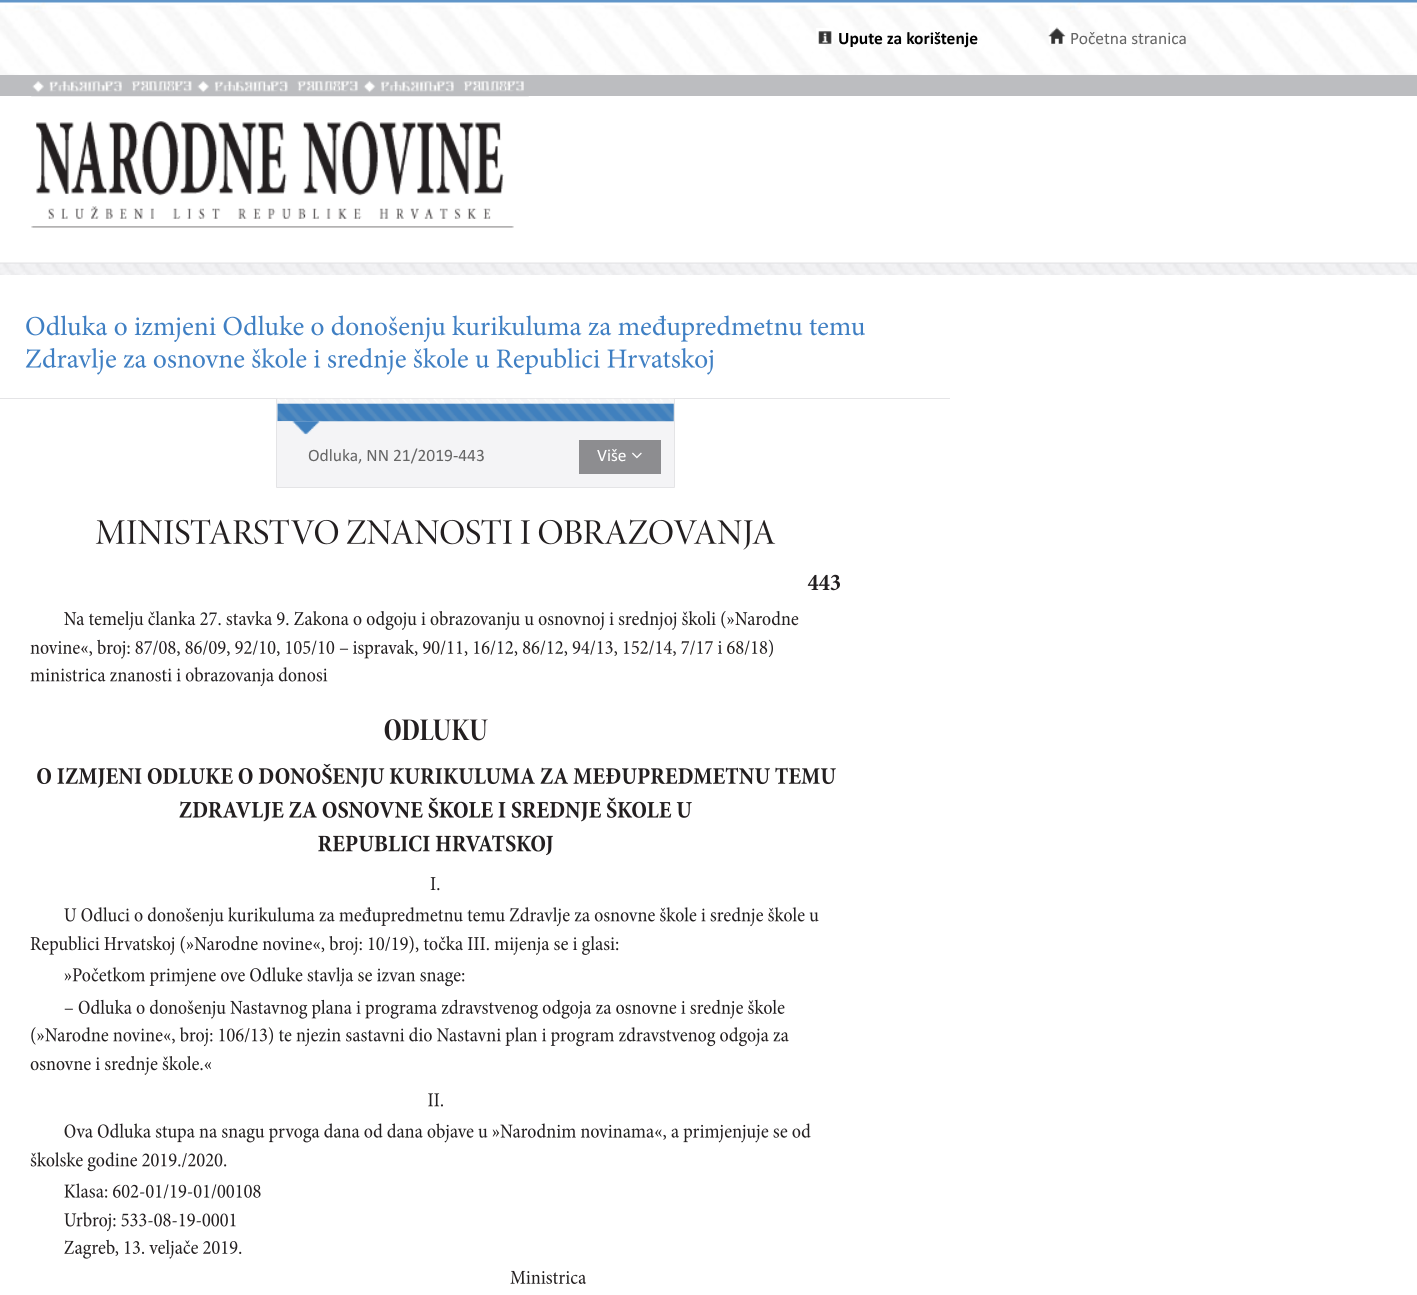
(async () => {
  const canvas = document.querySelector("canvas");
  canvas.width = 1417;
  canvas.height = 1295;
  const ctx = canvas.getContext("2d");
  ctx.miterLimit = 4;
  ctx.fontKerning = "normal";
  async function loadImage(src) {
    const img = new Image();
    img.src = src;
    await img.decode();
    return img;
  }

  ctx.fillStyle = "#ffffff";
  ctx.fillRect(0, 0, 1417, 1295);
  ctx.drawImage(await loadImage("img/1.png"), 0, 0, 1417, 75);
  ctx.drawImage(await loadImage("img/2.png"), 816, 28, 18, 16);
  ctx.drawImage(await loadImage("img/3.png"), 1048, 27, 18, 17);
  ctx.fillStyle = "#bcbdc0";
  ctx.fillRect(0, 75, 1417, 21);
  ctx.drawImage(await loadImage("img/4.png"), 31, 81, 166, 16);
  ctx.drawImage(await loadImage("img/5.png"), 196, 81, 167, 16);
  ctx.drawImage(await loadImage("img/6.png"), 362, 81, 167, 16);
  ctx.drawImage(await loadImage("img/7.png"), 31, 121, 483, 107);
  ctx.drawImage(await loadImage("img/8.png"), 0, 262, 1417, 13);
  ctx.drawImage(await loadImage("img/9.png"), 26, 315, 839, 27);
  ctx.drawImage(await loadImage("img/10.png"), 25, 348, 688, 27);
  ctx.fillStyle = "#e4e4e6";
  ctx.fillRect(0, 398, 950, 1);
  ctx.drawImage(await loadImage("img/11.png"), 95, 519, 681, 31);
  ctx.drawImage(await loadImage("img/12.png"), 807, 574, 33, 17);
  ctx.drawImage(await loadImage("img/13.png"), 64, 611, 735, 19);
  ctx.drawImage(await loadImage("img/14.png"), 30, 639, 319, 20);
  ctx.drawImage(await loadImage("img/15.png"), 353, 639, 420, 20);
  ctx.drawImage(await loadImage("img/16.png"), 30, 667, 298, 20);
  ctx.drawImage(await loadImage("img/17.png"), 384, 719, 104, 22);
  ctx.drawImage(await loadImage("img/18.png"), 37, 763, 799, 25);
  ctx.drawImage(await loadImage("img/19.png"), 179, 797, 513, 25);
  ctx.drawImage(await loadImage("img/20.png"), 318, 835, 236, 21);
  ctx.drawImage(await loadImage("img/21.png"), 430, 877, 10, 14);
  ctx.drawImage(await loadImage("img/22.png"), 64, 907, 755, 20);
  ctx.drawImage(await loadImage("img/23.png"), 30, 936, 589, 19);
  ctx.drawImage(await loadImage("img/24.png"), 64, 967, 401, 20);
  ctx.drawImage(await loadImage("img/25.png"), 64, 999, 721, 20);
  ctx.drawImage(await loadImage("img/26.png"), 31, 1027, 758, 20);
  ctx.drawImage(await loadImage("img/27.png"), 30, 1056, 181, 19);
  ctx.drawImage(await loadImage("img/28.png"), 428, 1093, 15, 14);
  ctx.drawImage(await loadImage("img/29.png"), 64, 1123, 747, 20);
  ctx.drawImage(await loadImage("img/30.png"), 30, 1152, 197, 20);
  ctx.drawImage(await loadImage("img/31.png"), 64, 1183, 197, 16);
  ctx.drawImage(await loadImage("img/32.png"), 64, 1212, 172, 20);
  ctx.drawImage(await loadImage("img/33.png"), 64, 1239, 178, 20);
  ctx.drawImage(await loadImage("img/34.png"), 510, 1270, 77, 14);
  ctx.fillStyle = "#f4f4f6";
  ctx.beginPath();
  ctx.rect(276.5, 398.5, 398, 89);
  ctx.fill();
  ctx.strokeStyle = "#e4e4e6";
  ctx.stroke();
  ctx.drawImage(await loadImage("img/35.png"), 277, 398, 397, 24);
  ctx.drawImage(await loadImage("img/36.png"), 277, 421, 43, 14);
  ctx.fillStyle = "#8d8d90";
  ctx.fillRect(579, 440, 82, 34);
  ctx.drawImage(await loadImage("img/37.png"), 632, 452, 10, 7);
  ctx.font = "bold 17.5px Calibri";
  ctx.fillStyle = "#000000";
  ctx.fillText("Upute za korištenje", 838, 44);
  ctx.font = "17.5px Calibri";
  ctx.fillStyle = "#666666";
  ctx.fillText("Početna stranica", 1070, 44);
  ctx.fillText("Odluka, NN 21/2019-443", 308, 461);
  ctx.fillStyle = "#ffffff";
  ctx.fillText("Više", 597, 461);
})();
